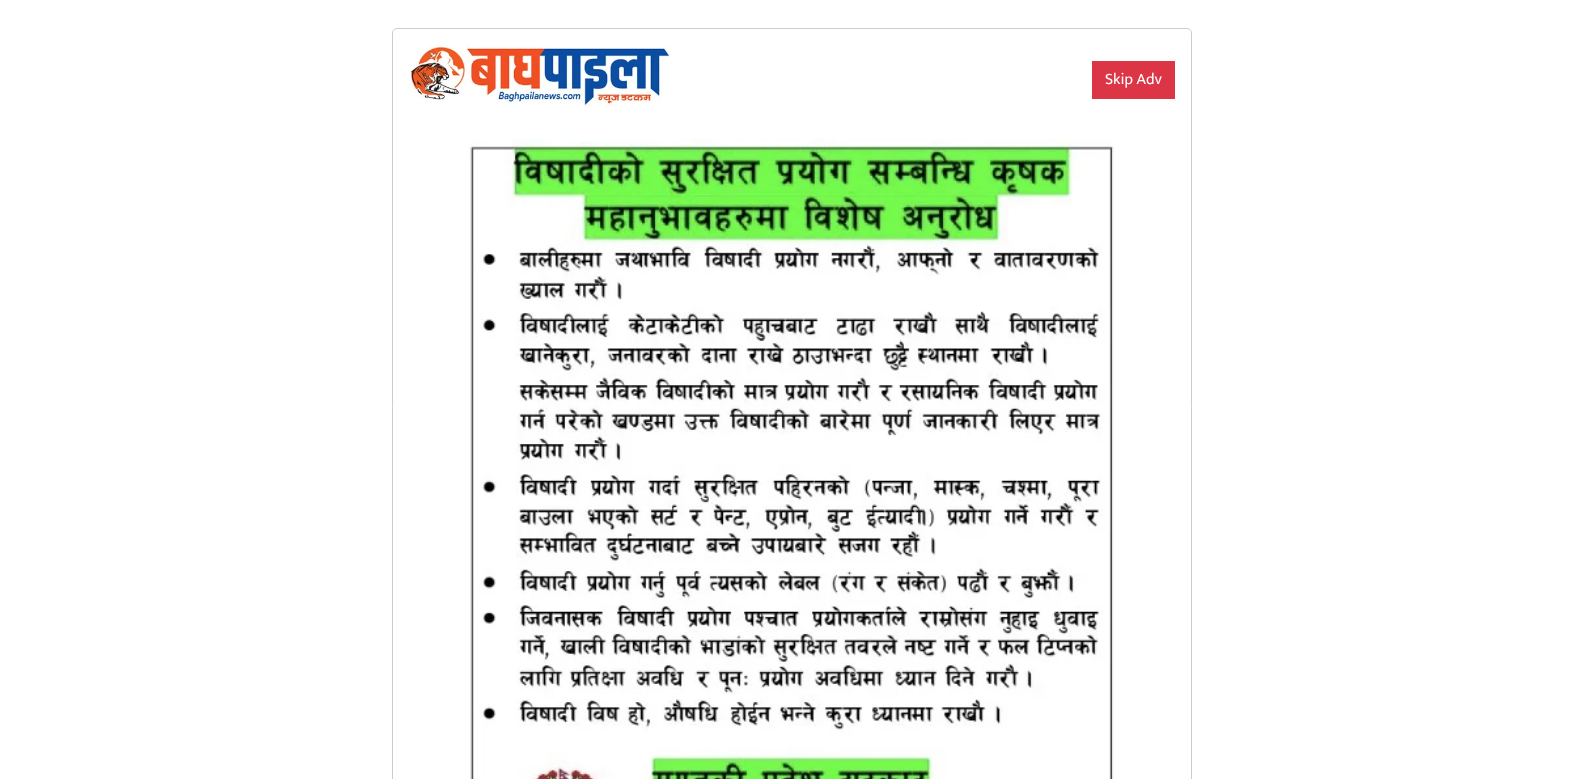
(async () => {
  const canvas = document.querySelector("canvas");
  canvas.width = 1584;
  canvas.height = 779;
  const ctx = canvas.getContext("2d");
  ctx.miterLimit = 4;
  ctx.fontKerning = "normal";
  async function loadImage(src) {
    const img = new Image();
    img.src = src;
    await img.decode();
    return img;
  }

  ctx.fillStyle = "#ffffff";
  ctx.fillRect(0, 0, 1584, 779);
  ctx.beginPath();
  ctx.roundRect(392.5, 28.5, 799, 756, 4.5);
  ctx.strokeStyle = "#cccccc";
  ctx.stroke();
  ctx.drawImage(await loadImage("img/1.png"), 409, 45, 262, 62);
  ctx.fillStyle = "#dc3545";
  ctx.fillRect(1092, 61, 83, 38);
  ctx.drawImage(await loadImage("img/2.png"), 469, 139, 645, 640);
  ctx.font = "16px Mukta";
  ctx.fillStyle = "#ffffff";
  ctx.fillText("Skip Adv", 1105, 84);
})();
